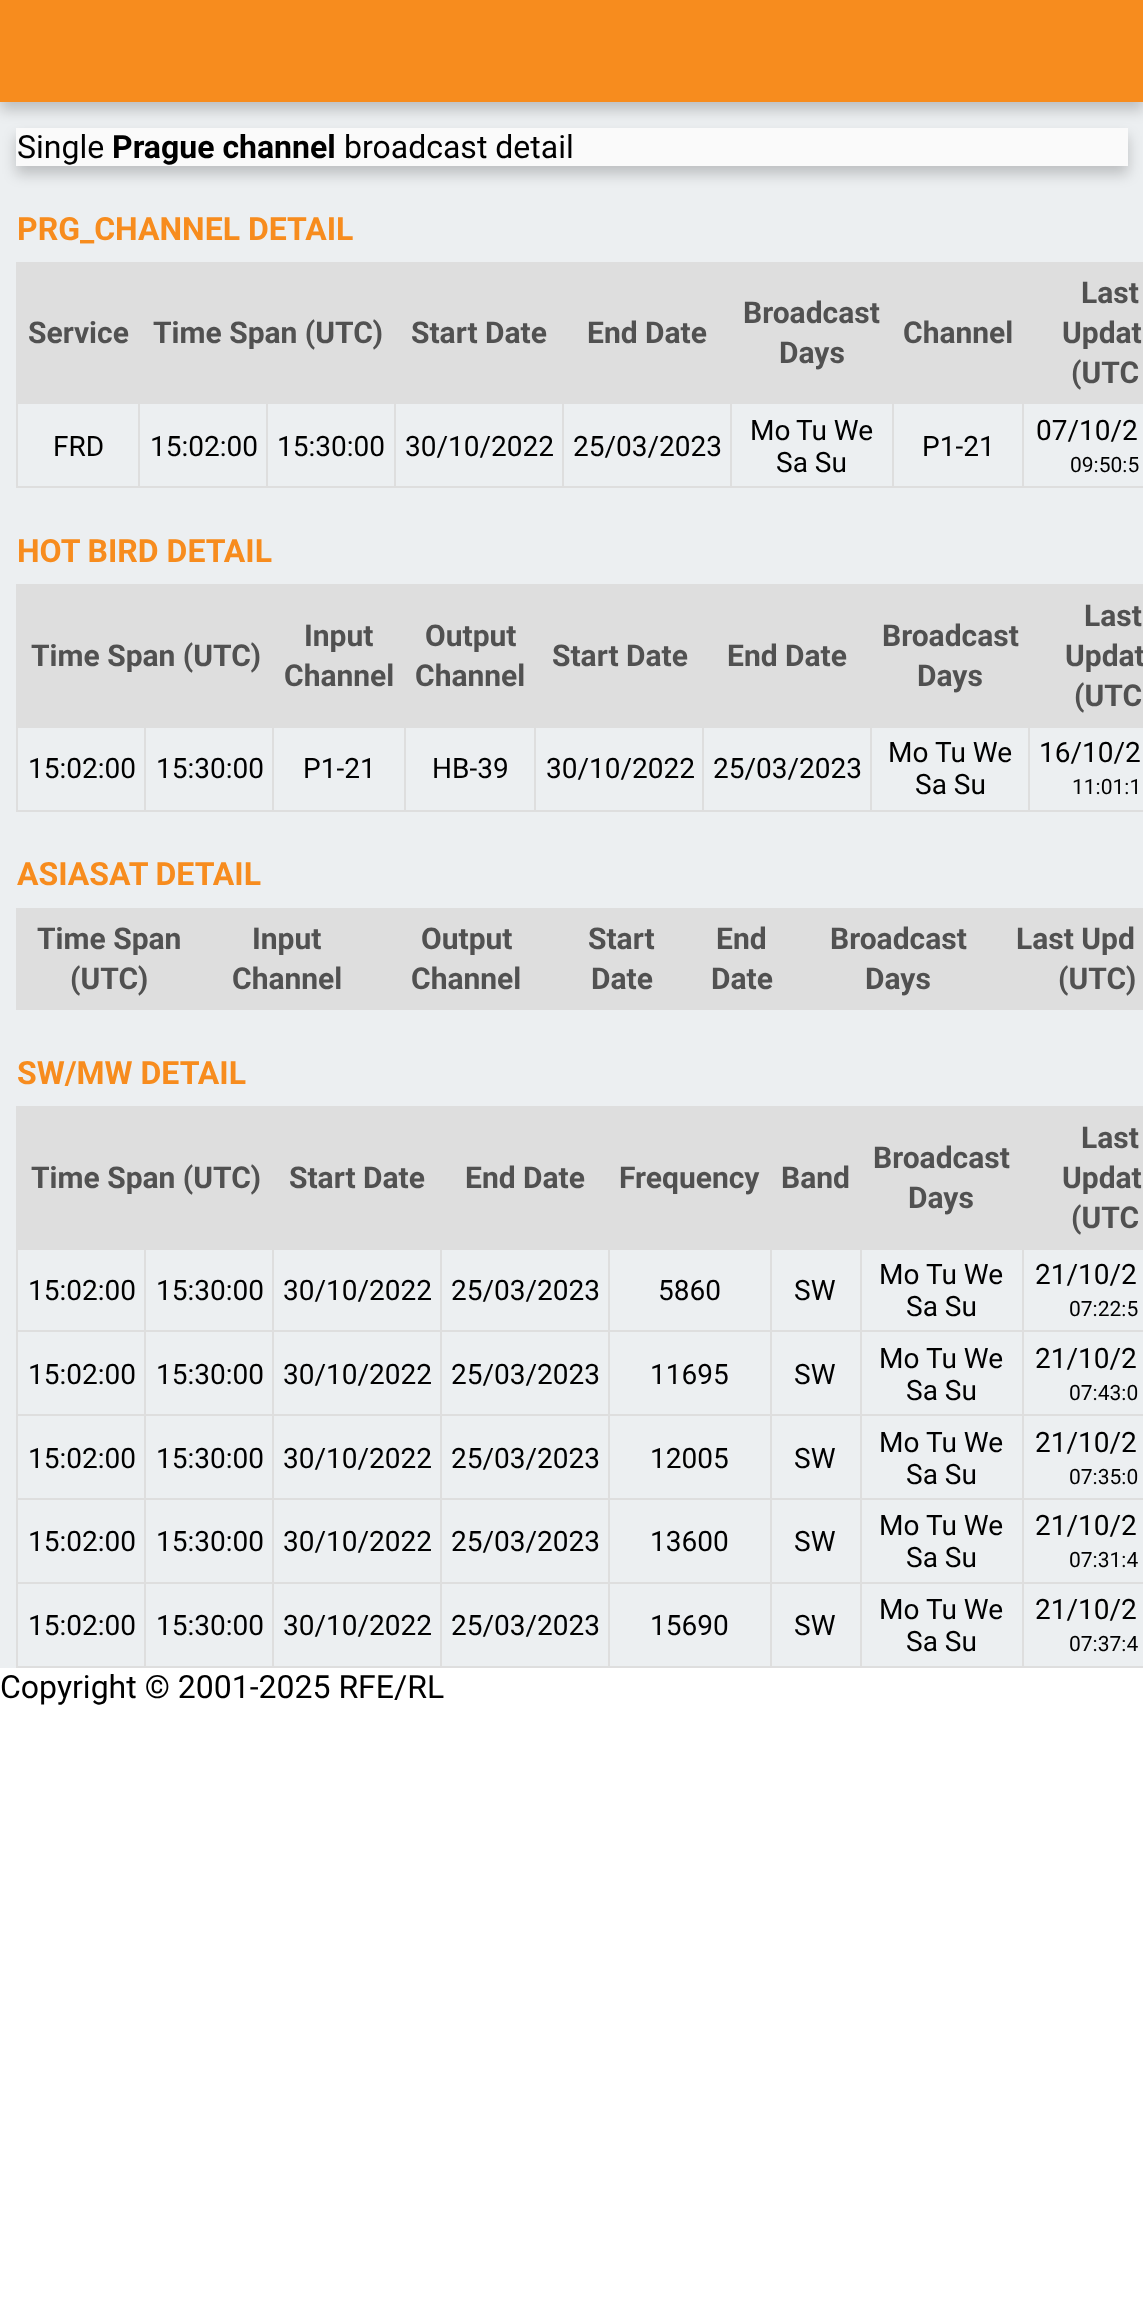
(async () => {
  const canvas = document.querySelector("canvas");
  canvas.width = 1143;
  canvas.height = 2319;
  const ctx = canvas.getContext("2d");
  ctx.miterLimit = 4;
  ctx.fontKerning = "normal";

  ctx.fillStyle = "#ffffff";
  ctx.fillRect(0, 0, 1143, 2319);
  ctx.fillStyle = "#eceff1";
  ctx.fillRect(0, 102, 1143, 1566);
  ctx.fillStyle = "rgba(0, 0, 0, 0.2)";
  ctx.filter = "blur(7px)";
  ctx.beginPath();
  ctx.rect(0, 8, 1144, 102);
  ctx.fill();
  ctx.filter = "none";
  ctx.fillStyle = "#f78c1e";
  ctx.fillRect(0, 0, 1143, 102);
  ctx.fillStyle = "rgba(0, 0, 0, 0.2)";
  ctx.filter = "blur(7px)";
  ctx.beginPath();
  ctx.rect(16, 136, 1112, 38);
  ctx.fill();
  ctx.filter = "none";
  for (const [x, y, w, h, color] of [
    [16, 128, 1112, 38, "#fafafa"],
    [18, 262, 1125, 142, "#dedede"],
    [16, 402, 2, 2, "#dedede"],
    [1022, 486, 121, 2, "#dedede"],
    [1022, 402, 2, 86, "#dedede"],
    [892, 486, 132, 2, "#dedede"],
    [892, 402, 2, 86, "#dedede"],
    [730, 486, 164, 2, "#dedede"],
    [730, 402, 2, 86, "#dedede"],
    [562, 486, 170, 2, "#dedede"],
    [562, 402, 2, 86, "#dedede"],
    [394, 486, 170, 2, "#dedede"],
    [394, 402, 2, 86, "#dedede"],
    [266, 486, 130, 2, "#dedede"],
    [266, 402, 2, 86, "#dedede"],
    [138, 486, 130, 2, "#dedede"],
    [138, 402, 2, 86, "#dedede"],
    [16, 486, 124, 2, "#dedede"],
    [16, 402, 2, 86, "#dedede"],
    [16, 262, 2, 142, "#dedede"],
    [18, 586, 1125, 140, "#dedede"],
    [16, 584, 1127, 2, "#dedede"],
    [1028, 726, 115, 2, "#dedede"],
    [1028, 810, 115, 2, "#dedede"],
    [1028, 726, 2, 86, "#dedede"],
    [870, 726, 160, 2, "#dedede"],
    [870, 810, 160, 2, "#dedede"],
    [870, 726, 2, 86, "#dedede"],
    [702, 726, 170, 2, "#dedede"],
    [702, 810, 170, 2, "#dedede"],
    [702, 726, 2, 86, "#dedede"],
    [534, 726, 170, 2, "#dedede"],
    [534, 810, 170, 2, "#dedede"],
    [534, 726, 2, 86, "#dedede"],
    [404, 726, 132, 2, "#dedede"],
    [404, 810, 132, 2, "#dedede"],
    [404, 726, 2, 86, "#dedede"],
    [272, 726, 134, 2, "#dedede"],
    [272, 810, 134, 2, "#dedede"],
    [272, 726, 2, 86, "#dedede"],
    [144, 726, 130, 2, "#dedede"],
    [144, 810, 130, 2, "#dedede"],
    [144, 726, 2, 86, "#dedede"],
    [16, 726, 130, 2, "#dedede"],
    [16, 810, 130, 2, "#dedede"],
    [16, 726, 2, 86, "#dedede"],
    [16, 584, 2, 144, "#dedede"],
    [18, 908, 1125, 102, "#dedede"],
    [16, 908, 2, 2, "#dedede"],
    [16, 908, 2, 102, "#dedede"],
    [18, 1108, 1125, 140, "#dedede"],
    [16, 1106, 1127, 2, "#dedede"],
    [1022, 1248, 121, 2, "#dedede"],
    [1022, 1330, 121, 2, "#dedede"],
    [1022, 1414, 121, 2, "#dedede"],
    [1022, 1498, 121, 2, "#dedede"],
    [1022, 1582, 121, 2, "#dedede"],
    [1022, 1666, 121, 2, "#dedede"],
    [1022, 1582, 2, 86, "#dedede"],
    [860, 1582, 164, 2, "#dedede"],
    [1022, 1498, 2, 86, "#dedede"],
    [860, 1498, 164, 2, "#dedede"],
    [1022, 1414, 2, 86, "#dedede"],
    [860, 1414, 164, 2, "#dedede"],
    [1022, 1330, 2, 86, "#dedede"],
    [860, 1330, 164, 2, "#dedede"],
    [1022, 1248, 2, 84, "#dedede"],
    [860, 1248, 164, 2, "#dedede"],
    [860, 1666, 164, 2, "#dedede"],
    [860, 1582, 2, 86, "#dedede"],
    [770, 1582, 92, 2, "#dedede"],
    [860, 1498, 2, 86, "#dedede"],
    [770, 1498, 92, 2, "#dedede"],
    [860, 1414, 2, 86, "#dedede"],
    [770, 1414, 92, 2, "#dedede"],
    [860, 1330, 2, 86, "#dedede"],
    [770, 1330, 92, 2, "#dedede"],
    [860, 1248, 2, 84, "#dedede"],
    [770, 1248, 92, 2, "#dedede"],
    [770, 1666, 92, 2, "#dedede"],
    [770, 1582, 2, 86, "#dedede"],
    [608, 1582, 164, 2, "#dedede"],
    [770, 1498, 2, 86, "#dedede"],
    [608, 1498, 164, 2, "#dedede"],
    [770, 1414, 2, 86, "#dedede"],
    [608, 1414, 164, 2, "#dedede"],
    [770, 1330, 2, 86, "#dedede"],
    [608, 1330, 164, 2, "#dedede"],
    [770, 1248, 2, 84, "#dedede"],
    [608, 1248, 164, 2, "#dedede"],
    [608, 1666, 164, 2, "#dedede"],
    [608, 1582, 2, 86, "#dedede"],
    [440, 1582, 170, 2, "#dedede"],
    [608, 1498, 2, 86, "#dedede"],
    [440, 1498, 170, 2, "#dedede"],
    [608, 1414, 2, 86, "#dedede"],
    [440, 1414, 170, 2, "#dedede"],
    [608, 1330, 2, 86, "#dedede"],
    [440, 1330, 170, 2, "#dedede"],
    [608, 1248, 2, 84, "#dedede"],
    [440, 1248, 170, 2, "#dedede"],
    [440, 1666, 170, 2, "#dedede"],
    [440, 1582, 2, 86, "#dedede"],
    [272, 1582, 170, 2, "#dedede"],
    [440, 1498, 2, 86, "#dedede"],
    [272, 1498, 170, 2, "#dedede"],
    [440, 1414, 2, 86, "#dedede"],
    [272, 1414, 170, 2, "#dedede"],
    [440, 1330, 2, 86, "#dedede"],
    [272, 1330, 170, 2, "#dedede"],
    [440, 1248, 2, 84, "#dedede"],
    [272, 1248, 170, 2, "#dedede"],
    [272, 1666, 170, 2, "#dedede"],
    [272, 1582, 2, 86, "#dedede"],
    [144, 1582, 130, 2, "#dedede"],
    [272, 1498, 2, 86, "#dedede"],
    [144, 1498, 130, 2, "#dedede"],
    [272, 1414, 2, 86, "#dedede"],
    [144, 1414, 130, 2, "#dedede"],
    [272, 1330, 2, 86, "#dedede"],
    [144, 1330, 130, 2, "#dedede"],
    [272, 1248, 2, 84, "#dedede"],
    [144, 1248, 130, 2, "#dedede"],
    [144, 1666, 130, 2, "#dedede"],
    [144, 1582, 2, 86, "#dedede"],
    [16, 1582, 130, 2, "#dedede"],
    [144, 1498, 2, 86, "#dedede"],
    [16, 1498, 130, 2, "#dedede"],
    [144, 1414, 2, 86, "#dedede"],
    [16, 1414, 130, 2, "#dedede"],
    [144, 1330, 2, 86, "#dedede"],
    [16, 1330, 130, 2, "#dedede"],
    [144, 1248, 2, 84, "#dedede"],
    [16, 1248, 130, 2, "#dedede"],
    [16, 1666, 130, 2, "#dedede"],
    [16, 1582, 2, 86, "#dedede"],
    [16, 1498, 2, 86, "#dedede"],
    [16, 1414, 2, 86, "#dedede"],
    [16, 1330, 2, 86, "#dedede"],
    [16, 1248, 2, 84, "#dedede"],
    [16, 1106, 2, 144, "#dedede"],
  ]) {
    ctx.fillStyle = color;
    ctx.fillRect(x, y, w, h);
  }
  ctx.font = "32px Roboto";
  ctx.fillStyle = "#000000";
  ctx.fillText("Single", 17, 158);
  ctx.font = "bold 32px Roboto";
  ctx.fillText("Prague channel", 112, 158);
  ctx.font = "32px Roboto";
  ctx.fillText("broadcast detail", 344, 158);
  ctx.font = "bold 32px Roboto";
  ctx.fillStyle = "#f78c1e";
  ctx.fillText("PRG_CHANNEL DETAIL", 17, 240);
  ctx.font = "bold 30px Roboto";
  ctx.fillStyle = "#515151";
  for (const [text, x, y] of [
    ["Service", 28, 343],
    ["Time Span (UTC)", 153, 343],
    ["Start Date", 411, 343],
    ["End Date", 587, 343],
    ["Broadcast", 743, 323],
    ["Days", 779, 363],
    ["Channel", 903, 343],
    ["Last", 1081, 303],
    ["Updat", 1062, 343],
    ["(UTC", 1071, 383],
  ]) {
    ctx.fillText(text, x, y);
  }
  ctx.font = "28px Roboto";
  ctx.fillStyle = "#000000";
  for (const [text, x, y] of [
    ["FRD", 53, 456],
    ["15:02:00", 150, 456],
    ["15:30:00", 277, 456],
    ["30/10/2022", 405, 456],
    ["25/03/2023", 573, 456],
    ["Mo", 750, 440],
    ["Tu We", 796, 440],
    ["Sa Su", 776, 472],
    ["P1-21", 922, 456],
    ["07/10/2", 1036, 440],
  ]) {
    ctx.fillText(text, x, y);
  }
  ctx.font = "21px Roboto";
  ctx.fillText("09:50:5", 1070, 472);
  ctx.font = "bold 32px Roboto";
  ctx.fillStyle = "#f78c1e";
  ctx.fillText("HOT BIRD DETAIL", 17, 562);
  ctx.font = "bold 30px Roboto";
  ctx.fillStyle = "#515151";
  for (const [text, x, y] of [
    ["Time Span (UTC)", 31, 666],
    ["Input", 304, 646],
    ["Channel", 284, 686],
    ["Output", 425, 646],
    ["Channel", 415, 686],
    ["Start Date", 552, 666],
    ["End Date", 727, 666],
    ["Broadcast", 882, 646],
    ["Days", 917, 686],
    ["Last", 1084, 626],
    ["Updat", 1065, 666],
    ["(UTC", 1074, 706],
  ]) {
    ctx.fillText(text, x, y);
  }
  ctx.font = "28px Roboto";
  ctx.fillStyle = "#000000";
  for (const [text, x, y] of [
    ["15:02:00", 28, 778],
    ["15:30:00", 156, 778],
    ["P1-21", 303, 778],
    ["HB-39", 432, 778],
    ["30/10/2022", 546, 778],
    ["25/03/2023", 713, 778],
    ["Mo", 888, 762],
    ["Tu We", 935, 762],
    ["Sa Su", 915, 794],
    ["16/10/2", 1039, 762],
  ]) {
    ctx.fillText(text, x, y);
  }
  ctx.font = "21px Roboto";
  ctx.fillText("11:01:1", 1072, 794);
  ctx.font = "bold 32px Roboto";
  ctx.fillStyle = "#f78c1e";
  ctx.fillText("ASIASAT DETAIL", 17, 885);
  ctx.font = "bold 30px Roboto";
  ctx.fillStyle = "#515151";
  for (const [text, x, y] of [
    ["Time Span", 37, 949],
    ["(UTC)", 70, 989],
    ["Input", 252, 949],
    ["Channel", 232, 989],
    ["Output", 421, 949],
    ["Channel", 411, 989],
    ["Start", 588, 949],
    ["Date", 591, 989],
    ["End", 716, 949],
    ["Date", 711, 989],
    ["Broadcast", 830, 949],
    ["Days", 865, 989],
    ["Last Upd", 1016, 949],
    ["(UTC)", 1058, 989],
  ]) {
    ctx.fillText(text, x, y);
  }
  ctx.font = "bold 32px Roboto";
  ctx.fillStyle = "#f78c1e";
  ctx.fillText("SW/MW DETAIL", 17, 1084);
  ctx.font = "bold 30px Roboto";
  ctx.fillStyle = "#515151";
  for (const [text, x, y] of [
    ["Time Span (UTC)", 31, 1188],
    ["Start Date", 289, 1188],
    ["End Date", 465, 1188],
    ["Frequency", 619, 1188],
    ["Band", 781, 1188],
    ["Broadcast", 873, 1168],
    ["Days", 908, 1208],
    ["Last", 1081, 1148],
    ["Updat", 1062, 1188],
    ["(UTC", 1071, 1228],
  ]) {
    ctx.fillText(text, x, y);
  }
  ctx.font = "28px Roboto";
  ctx.fillStyle = "#000000";
  for (const [text, x, y] of [
    ["15:02:00", 28, 1300],
    ["15:30:00", 156, 1300],
    ["30/10/2022", 283, 1300],
    ["25/03/2023", 451, 1300],
    ["5860", 658, 1300],
    ["SW", 794, 1300],
    ["Mo", 879, 1284],
    ["Tu We", 926, 1284],
    ["Sa Su", 906, 1316],
    ["21/10/2", 1035, 1284],
  ]) {
    ctx.fillText(text, x, y);
  }
  ctx.font = "21px Roboto";
  ctx.fillText("07:22:5", 1069, 1316);
  ctx.font = "28px Roboto";
  for (const [text, x, y] of [
    ["15:02:00", 28, 1384],
    ["15:30:00", 156, 1384],
    ["30/10/2022", 283, 1384],
    ["25/03/2023", 451, 1384],
    ["11695", 650, 1384],
    ["SW", 794, 1384],
    ["Mo", 879, 1368],
    ["Tu We", 926, 1368],
    ["Sa Su", 906, 1400],
    ["21/10/2", 1035, 1368],
  ]) {
    ctx.fillText(text, x, y);
  }
  ctx.font = "21px Roboto";
  ctx.fillText("07:43:0", 1069, 1400);
  ctx.font = "28px Roboto";
  for (const [text, x, y] of [
    ["15:02:00", 28, 1468],
    ["15:30:00", 156, 1468],
    ["30/10/2022", 283, 1468],
    ["25/03/2023", 451, 1468],
    ["12005", 650, 1468],
    ["SW", 794, 1468],
    ["Mo", 879, 1452],
    ["Tu We", 926, 1452],
    ["Sa Su", 906, 1484],
    ["21/10/2", 1035, 1452],
  ]) {
    ctx.fillText(text, x, y);
  }
  ctx.font = "21px Roboto";
  ctx.fillText("07:35:0", 1069, 1484);
  ctx.font = "28px Roboto";
  for (const [text, x, y] of [
    ["15:02:00", 28, 1551],
    ["15:30:00", 156, 1551],
    ["30/10/2022", 283, 1551],
    ["25/03/2023", 451, 1551],
    ["13600", 650, 1551],
    ["SW", 794, 1551],
    ["Mo", 879, 1535],
    ["Tu We", 926, 1535],
    ["Sa Su", 906, 1567],
    ["21/10/2", 1035, 1535],
  ]) {
    ctx.fillText(text, x, y);
  }
  ctx.font = "21px Roboto";
  ctx.fillText("07:31:4", 1069, 1567);
  ctx.font = "28px Roboto";
  for (const [text, x, y] of [
    ["15:02:00", 28, 1635],
    ["15:30:00", 156, 1635],
    ["30/10/2022", 283, 1635],
    ["25/03/2023", 451, 1635],
    ["15690", 650, 1635],
    ["SW", 794, 1635],
    ["Mo", 879, 1619],
    ["Tu We", 926, 1619],
    ["Sa Su", 906, 1651],
    ["21/10/2", 1035, 1619],
  ]) {
    ctx.fillText(text, x, y);
  }
  ctx.font = "21px Roboto";
  ctx.fillText("07:37:4", 1069, 1651);
  ctx.font = "32px Roboto";
  ctx.fillText("Copyright © 2001-2025 RFE/RL", 0, 1698);
})();
